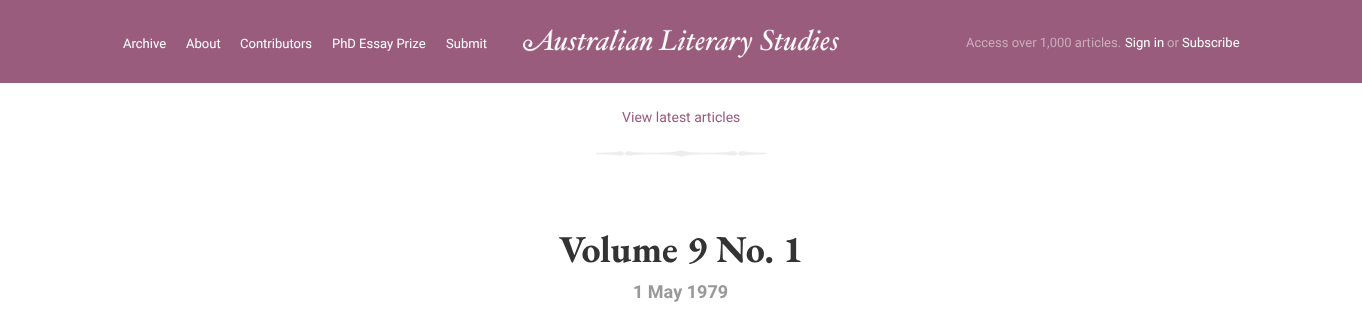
(async () => {
  const canvas = document.querySelector("canvas");
  canvas.width = 1362;
  canvas.height = 314;
  const ctx = canvas.getContext("2d");
  ctx.miterLimit = 4;
  ctx.fontKerning = "normal";
  async function loadImage(src) {
    const img = new Image();
    img.src = src;
    await img.decode();
    return img;
  }

  ctx.fillStyle = "#ffffff";
  ctx.fillRect(0, 0, 1362, 314);
  ctx.fillStyle = "#9a5c7d";
  ctx.fillRect(0, 0, 1362, 83);
  ctx.drawImage(await loadImage("img/1.png"), 523, 29, 316, 29);
  ctx.drawImage(await loadImage("img/2.png"), 596, 150, 170, 7);
  ctx.font = "13px Heebo";
  ctx.fillStyle = "#ffffff";
  for (const [text, x, y] of [
    ["Archive", 123, 48],
    ["About", 186, 48],
    ["Contributors", 240, 48],
    ["PhD Essay Prize", 332, 48],
    ["Submit", 446, 48],
  ]) {
    ctx.fillText(text, x, y);
  }
  ctx.fillStyle = "#caacbc";
  ctx.fillText("Access over 1,000 articles.", 966, 47);
  ctx.fillStyle = "#ffffff";
  ctx.fillText("Sign in", 1125, 47);
  ctx.fillStyle = "#caacbc";
  ctx.fillText("or", 1167, 47);
  ctx.fillStyle = "#ffffff";
  ctx.fillText("Subscribe", 1182, 47);
  ctx.font = "14px Heebo";
  ctx.fillStyle = "#9a5c7d";
  ctx.fillText("View latest articles", 622, 122);
  ctx.font = "bold 38px EB Garamond";
  ctx.fillStyle = "#333333";
  ctx.fillText("Volume 9 No. 1", 559, 262);
  ctx.font = "bold 18px Heebo";
  ctx.fillStyle = "#999999";
  ctx.fillText("1 May 1979", 633, 298);
})();
